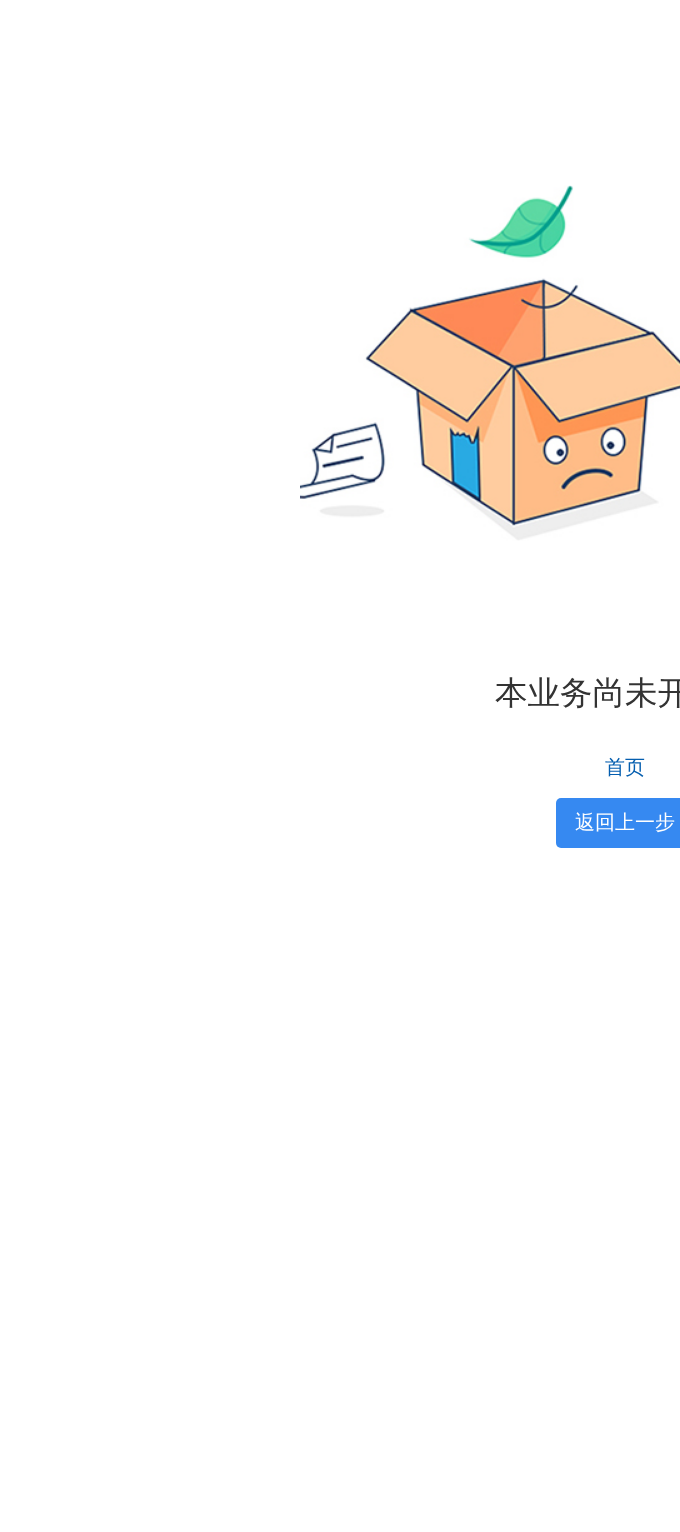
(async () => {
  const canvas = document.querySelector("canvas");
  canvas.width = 680;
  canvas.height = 1532;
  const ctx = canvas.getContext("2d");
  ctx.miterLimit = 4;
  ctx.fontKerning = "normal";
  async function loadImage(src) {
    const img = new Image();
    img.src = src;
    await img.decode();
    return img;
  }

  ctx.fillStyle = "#ffffff";
  ctx.fillRect(0, 0, 680, 1532);
  ctx.drawImage(await loadImage("img/1.png"), 300, 185, 380, 356);
  ctx.fillStyle = "#3689f1";
  ctx.beginPath();
  ctx.roundRect(556, 798, 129, 50, 5);
  ctx.fill();
  ctx.font = "500 32.5px WenQuanYi Zen Hei";
  ctx.fillStyle = "#333333";
  ctx.fillText("本业务尚未开", 495, 704);
  ctx.font = "500 20px WenQuanYi Zen Hei";
  ctx.fillStyle = "#045eaf";
  ctx.fillText("首页", 605, 774);
  ctx.fillStyle = "#ffffff";
  ctx.fillText("返回上一步", 575, 829);
})();
